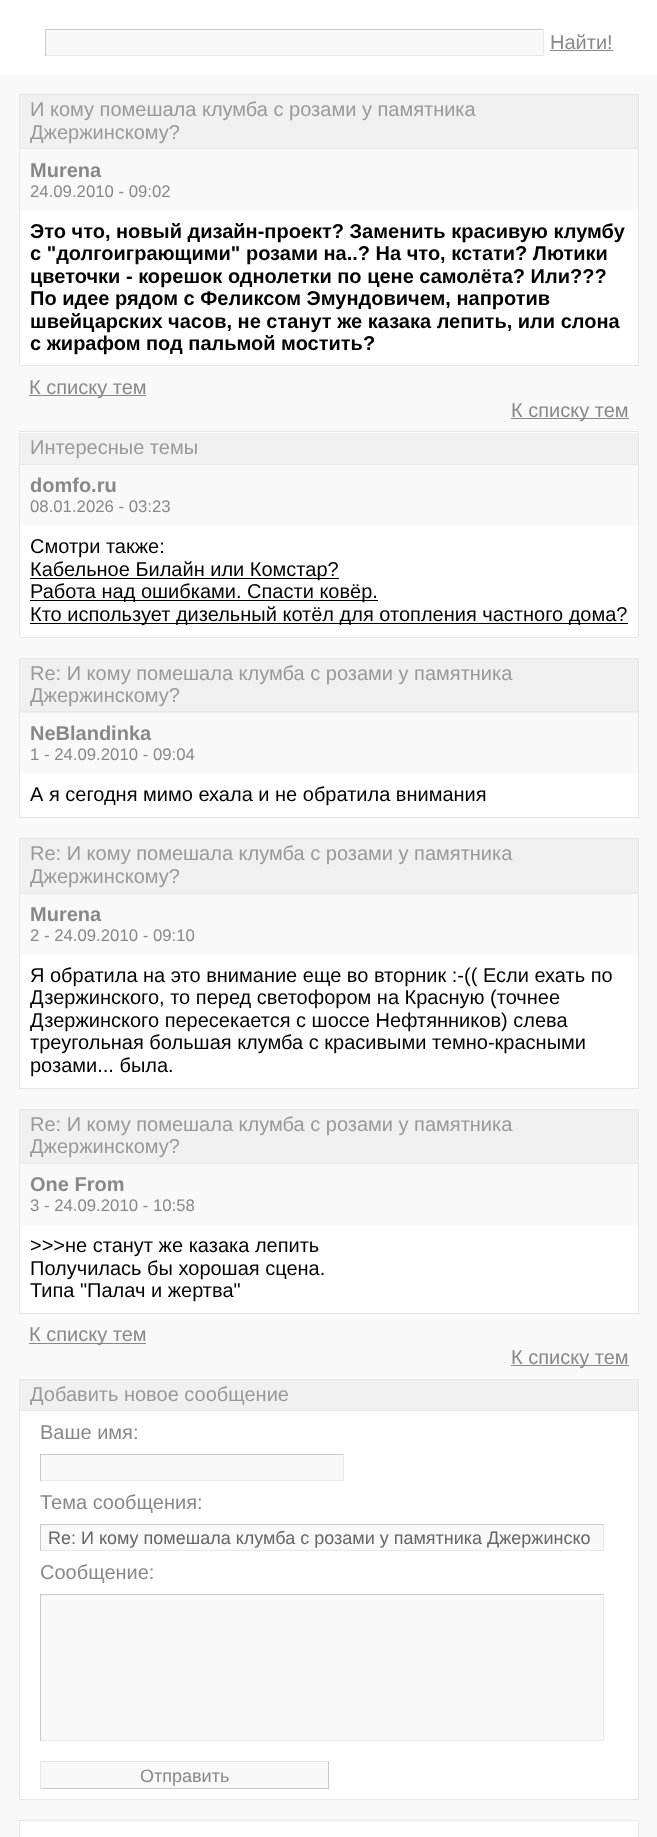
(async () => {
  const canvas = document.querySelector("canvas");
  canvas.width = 657;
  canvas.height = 1837;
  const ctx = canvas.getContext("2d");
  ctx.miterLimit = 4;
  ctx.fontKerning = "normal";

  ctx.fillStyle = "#ffffff";
  ctx.fillRect(0, 0, 657, 1837);
  for (const [x, y, w, h, color] of [
    [46, 30, 497, 25, "#f9f9f9"],
    [45, 29, 499, 1, "#c9c9c9"],
    [543, 29, 1, 27, "#e9e9e9"],
    [45, 55, 499, 1, "#e9e9e9"],
    [45, 29, 1, 27, "#c9c9c9"],
    [550, 50, 63, 1, "#888888"],
    [0, 75, 657, 1762, "#f9f9f9"],
    [20, 210, 618, 155, "#ffffff"],
  ]) {
    ctx.fillStyle = color;
    ctx.fillRect(x, y, w, h);
  }
  ctx.strokeStyle = "#e6e6e6";
  ctx.strokeRect(19.5, 94.5, 619, 271);
  for (const [x, y, w, h, color] of [
    [20, 95, 618, 53, "#f0f0f0"],
    [20, 148, 618, 1, "#e9e9e9"],
    [29, 395, 117, 1, "#888888"],
    [511, 418, 118, 1, "#888888"],
  ]) {
    ctx.fillStyle = color;
    ctx.fillRect(x, y, w, h);
  }
  ctx.fillStyle = "#ffffff";
  ctx.beginPath();
  ctx.rect(19.5, 431.5, 619, 206);
  ctx.fill();
  ctx.stroke();
  for (const [x, y, w, h, color] of [
    [20, 433, 618, 31, "#f0f0f0"],
    [20, 464, 618, 1, "#e9e9e9"],
    [20, 465, 618, 61, "#f9f9f9"],
    [30, 578, 309, 1, "#000000"],
    [30, 600, 348, 1, "#000000"],
    [30, 623, 598, 1, "#000000"],
    [20, 774, 618, 43, "#ffffff"],
  ]) {
    ctx.fillStyle = color;
    ctx.fillRect(x, y, w, h);
  }
  ctx.strokeRect(19.5, 658.5, 619, 159);
  for (const [x, y, w, h, color] of [
    [20, 659, 618, 54, "#f0f0f0"],
    [20, 711, 618, 1, "#e9e9e9"],
    [20, 955, 618, 133, "#ffffff"],
  ]) {
    ctx.fillStyle = color;
    ctx.fillRect(x, y, w, h);
  }
  ctx.strokeRect(19.5, 838.5, 619, 250);
  for (const [x, y, w, h, color] of [
    [20, 839, 618, 54, "#f0f0f0"],
    [20, 893, 618, 1, "#e9e9e9"],
    [20, 1225, 618, 88, "#ffffff"],
  ]) {
    ctx.fillStyle = color;
    ctx.fillRect(x, y, w, h);
  }
  ctx.strokeRect(19.5, 1109.5, 619, 204);
  for (const [x, y, w, h, color] of [
    [20, 1110, 618, 53, "#f0f0f0"],
    [20, 1163, 618, 1, "#e9e9e9"],
    [29, 1343, 117, 1, "#888888"],
    [511, 1365, 118, 1, "#888888"],
    [20, 1411, 618, 388, "#ffffff"],
  ]) {
    ctx.fillStyle = color;
    ctx.fillRect(x, y, w, h);
  }
  ctx.strokeRect(19.5, 1379.5, 619, 420);
  for (const [x, y, w, h, color] of [
    [20, 1380, 618, 30, "#f0f0f0"],
    [20, 1410, 618, 1, "#e9e9e9"],
    [41, 1455, 302, 25, "#f9f9f9"],
    [40, 1454, 304, 1, "#c9c9c9"],
    [343, 1454, 1, 27, "#e9e9e9"],
    [40, 1480, 304, 1, "#e9e9e9"],
    [40, 1454, 1, 27, "#c9c9c9"],
    [41, 1525, 562, 25, "#f9f9f9"],
    [40, 1524, 564, 1, "#c9c9c9"],
    [603, 1524, 1, 27, "#e9e9e9"],
    [40, 1550, 564, 1, "#e9e9e9"],
    [40, 1524, 1, 27, "#c9c9c9"],
    [41, 1595, 562, 145, "#f9f9f9"],
    [40, 1594, 564, 1, "#c9c9c9"],
    [603, 1594, 1, 147, "#e9e9e9"],
    [40, 1740, 564, 1, "#e9e9e9"],
    [40, 1594, 1, 147, "#c9c9c9"],
    [41, 1762, 287, 26, "#f9f9f9"],
    [40, 1761, 289, 1, "#e9e9e9"],
    [328, 1761, 1, 28, "#c9c9c9"],
    [40, 1788, 289, 1, "#c9c9c9"],
    [40, 1761, 1, 28, "#e9e9e9"],
  ]) {
    ctx.fillStyle = color;
    ctx.fillRect(x, y, w, h);
  }
  ctx.strokeRect(19.5, 1820.5, 619, 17);
  ctx.fillStyle = "#ffffff";
  ctx.fillRect(20, 1821, 618, 16);
  ctx.font = "20px Liberation Sans";
  ctx.fillStyle = "#888888";
  ctx.fillText("Найти!", 550, 49);
  ctx.fillStyle = "#999999";
  ctx.fillText("И кому помешала клумба с розами у памятника", 30, 116);
  ctx.fillText("Джержинскому?", 30, 139);
  ctx.font = "bold 20px Liberation Sans";
  ctx.fillStyle = "#888888";
  ctx.fillText("Murena", 30, 177);
  ctx.font = "16.75px Liberation Sans";
  ctx.fillText("24.09.2010 - 09:02", 30, 197);
  ctx.font = "bold 20px Liberation Sans";
  ctx.fillStyle = "#000000";
  for (const [text, x, y] of [
    ["Это что, новый дизайн-проект? Заменить красивую клумбу", 30, 238],
    ["с \"долгоиграющими\" розами на..? На что, кстати? Лютики", 30, 260],
    ["цветочки - корешок однолетки по цене самолёта? Или???", 30, 283],
    ["По идее рядом с Феликсом Эмундовичем, напротив", 30, 305],
    ["швейцарских часов, не станут же казака лепить, или слона", 30, 328],
    ["с жирафом под пальмой мостить?", 30, 350],
  ]) {
    ctx.fillText(text, x, y);
  }
  ctx.font = "20px Liberation Sans";
  ctx.fillStyle = "#888888";
  ctx.fillText("К списку тем", 29, 394);
  ctx.fillText("К списку тем", 511, 417);
  ctx.fillStyle = "#999999";
  ctx.fillText("Интересные темы", 30, 454);
  ctx.font = "bold 20px Liberation Sans";
  ctx.fillStyle = "#888888";
  ctx.fillText("domfo.ru", 30, 492);
  ctx.font = "16.75px Liberation Sans";
  ctx.fillText("08.01.2026 - 03:23", 30, 512);
  ctx.font = "20px Liberation Sans";
  ctx.fillStyle = "#000000";
  for (const [text, x, y] of [
    ["Смотри также:", 30, 553],
    ["Кабельное Билайн или Комстар?", 30, 576],
    ["Работа над ошибками. Спасти ковёр.", 30, 598],
    ["Кто использует дизельный котёл для отопления частного дома?", 30, 621],
  ]) {
    ctx.fillText(text, x, y);
  }
  ctx.fillStyle = "#999999";
  ctx.fillText("Re: И кому помешала клумба с розами у памятника", 30, 680);
  ctx.fillText("Джержинскому?", 30, 702);
  ctx.font = "bold 20px Liberation Sans";
  ctx.fillStyle = "#888888";
  ctx.fillText("NeBlandinka", 30, 740);
  ctx.font = "16.75px Liberation Sans";
  ctx.fillText("1 - 24.09.2010 - 09:04", 30, 760);
  ctx.font = "20px Liberation Sans";
  ctx.fillStyle = "#000000";
  ctx.fillText("А я сегодня мимо ехала и не обратила внимания", 30, 801);
  ctx.fillStyle = "#999999";
  ctx.fillText("Re: И кому помешала клумба с розами у памятника", 30, 860);
  ctx.fillText("Джержинскому?", 30, 883);
  ctx.font = "bold 20px Liberation Sans";
  ctx.fillStyle = "#888888";
  ctx.fillText("Murena", 30, 921);
  ctx.font = "16.75px Liberation Sans";
  ctx.fillText("2 - 24.09.2010 - 09:10", 30, 941);
  ctx.font = "20px Liberation Sans";
  ctx.fillStyle = "#000000";
  for (const [text, x, y] of [
    ["Я обратила на это внимание еще во вторник :-(( Если ехать по", 30, 982],
    ["Дзержинского, то перед светофором на Красную (точнее", 30, 1004],
    ["Дзержинского пересекается с шоссе Нефтянников) слева", 30, 1027],
    ["треугольная большая клумба с красивыми темно-красными", 30, 1049],
    ["розами... была.", 30, 1072],
  ]) {
    ctx.fillText(text, x, y);
  }
  ctx.fillStyle = "#999999";
  ctx.fillText("Re: И кому помешала клумба с розами у памятника", 30, 1131);
  ctx.fillText("Джержинскому?", 30, 1153);
  ctx.font = "bold 20px Liberation Sans";
  ctx.fillStyle = "#888888";
  ctx.fillText("One From", 30, 1191);
  ctx.font = "16.75px Liberation Sans";
  ctx.fillText("3 - 24.09.2010 - 10:58", 30, 1211);
  ctx.font = "20px Liberation Sans";
  ctx.fillStyle = "#000000";
  for (const [text, x, y] of [
    [">>>не станут же казака лепить", 30, 1252],
    ["Получилась бы хорошая сцена.", 30, 1275],
    ["Типа \"Палач и жертва\"", 30, 1297],
  ]) {
    ctx.fillText(text, x, y);
  }
  ctx.fillStyle = "#888888";
  ctx.fillText("К списку тем", 29, 1341);
  ctx.fillText("К списку тем", 511, 1364);
  ctx.fillStyle = "#999999";
  ctx.fillText("Добавить новое сообщение", 30, 1401);
  ctx.fillStyle = "#888888";
  ctx.fillText("Ваше имя:", 40, 1439);
  ctx.fillText("Тема сообщения:", 40, 1509);
  ctx.font = "18px Liberation Sans";
  ctx.fillStyle = "#666666";
  ctx.fillText("Re: И кому помешала клумба с розами у памятника Джержинско", 48, 1544);
  ctx.font = "20px Liberation Sans";
  ctx.fillStyle = "#888888";
  ctx.fillText("Сообщение:", 40, 1579);
  ctx.font = "18px Liberation Sans";
  ctx.fillText("Отправить", 140, 1782);
})();
